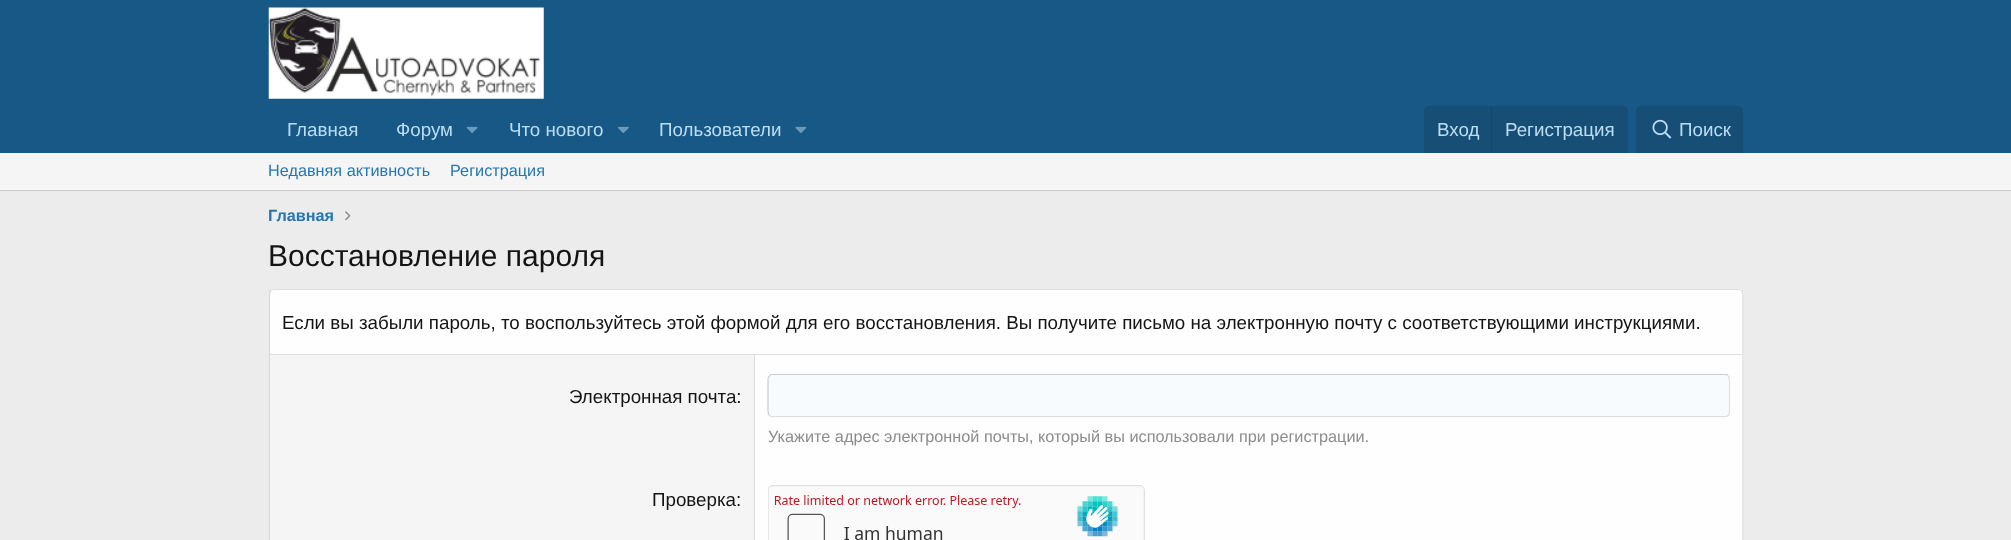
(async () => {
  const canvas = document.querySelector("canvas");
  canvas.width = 2011;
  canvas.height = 540;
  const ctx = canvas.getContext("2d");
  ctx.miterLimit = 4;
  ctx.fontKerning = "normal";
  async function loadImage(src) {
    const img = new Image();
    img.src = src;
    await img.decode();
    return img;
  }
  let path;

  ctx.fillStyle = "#ececec";
  ctx.fillRect(0, 0, 2011, 540);
  ctx.fillStyle = "#185886";
  ctx.fillRect(0, 0, 2011, 153);
  ctx.drawImage(await loadImage("img/1.png"), 268, 7, 276, 92);
  ctx.drawImage(await loadImage("img/2.png"), 466, 126, 12, 7);
  ctx.drawImage(await loadImage("img/3.png"), 618, 126, 11, 7);
  ctx.drawImage(await loadImage("img/4.png"), 795, 126, 12, 7);
  ctx.fillStyle = "#174e75";
  ctx.beginPath();
  ctx.roundRect(1424, 106, 204, 47, [5, 5, 0, 0]);
  ctx.fill();
  ctx.fillStyle = "#174566";
  ctx.fillRect(1491, 106, 1, 47);
  ctx.fillStyle = "#174e75";
  ctx.beginPath();
  ctx.roundRect(1636, 106, 107, 47, [5, 5, 0, 0]);
  ctx.fill();
  ctx.drawImage(await loadImage("img/5.png"), 1652, 119, 20, 20);
  ctx.fillStyle = "#f5f5f5";
  ctx.fillRect(0, 153, 2011, 37);
  ctx.fillStyle = "#cbcbcb";
  ctx.fillRect(0, 190, 2011, 1);
  ctx.drawImage(await loadImage("img/6.png"), 345, 211, 6, 10);
  ctx.fillStyle = "#fefefe";
  ctx.beginPath();
  ctx.roundRect(269, 289, 1475, 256, 5);
  ctx.fill();
  path = new Path2D("M270.5 290.5L274 289.5H1739L1742 290.5");
  ctx.strokeStyle = "#dfdfdf";
  ctx.lineWidth = 1.2;
  ctx.stroke(path);
  path = new Path2D("M1742 290.5L1743 294V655L1742 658");
  ctx.strokeStyle = "#d8d8d8";
  ctx.stroke(path);
  path = new Path2D("M270.5 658L269.5 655V294L270.5 290.5");
  ctx.stroke(path);
  for (const [x, y, w, h, color] of [
    [270, 354, 1473, 1, "#dfdfdf"],
    [270, 355, 484, 185, "#f5f5f5"],
    [754, 355, 1, 185, "#dfdfdf"],
  ]) {
    ctx.fillStyle = color;
    ctx.fillRect(x, y, w, h);
  }
  ctx.fillStyle = "#f7fbfe";
  ctx.beginPath();
  ctx.roundRect(768, 374, 962, 44, 5);
  ctx.fill();
  path = new Path2D("M1728 375.5C1730 378 1729.5 382 1729.5 384.5V413L1728.5 415L1726.5 416.5H771L769.5 415.5");
  ctx.strokeStyle = "#dfdfdf";
  ctx.stroke(path);
  path = new Path2D("M769.5 415.5C767.5 413.5 768 409.5 768 407V378.5L769 376.5L771 374.5H1726.5L1728 375.5");
  ctx.strokeStyle = "#cbcbcb";
  ctx.stroke(path);
  ctx.drawImage(await loadImage("img/7.png"), 768, 485, 377, 55);
  ctx.font = "18.75px Liberation Sans";
  ctx.fillStyle = "#bcdef5";
  for (const [text, x, y] of [
    ["Главная", 287, 136],
    ["Форум", 396, 136],
    ["Что нового", 509, 136],
    ["Пользователи", 659, 136],
    ["Вход", 1437, 136],
    ["Регистрация", 1505, 136],
    ["Поиск", 1679, 136],
  ]) {
    ctx.fillText(text, x, y);
  }
  ctx.font = "16.25px Liberation Sans";
  ctx.fillStyle = "#2577b1";
  ctx.fillText("Недавняя активность", 268, 176);
  ctx.fillText("Регистрация", 450, 176);
  ctx.font = "bold 16.25px Liberation Sans";
  ctx.fillText("Главная", 268, 221);
  ctx.font = "30px Liberation Sans";
  ctx.fillStyle = "#141414";
  ctx.fillText("Восстановление пароля", 268, 266);
  ctx.font = "18.75px Liberation Sans";
  ctx.fillText("Если вы забыли пароль, то воспользуйтесь этой формой для его восстановления. Вы получите письмо на электронную почту с соответствующими инструкциями.", 282, 329);
  ctx.fillText("Электронная почта:", 569, 403);
  ctx.font = "16.25px Liberation Sans";
  ctx.fillStyle = "#8c8c8c";
  ctx.fillText("Укажите адрес электронной почты, который вы использовали при регистрации.", 768, 442);
  ctx.font = "18.75px Liberation Sans";
  ctx.fillStyle = "#141414";
  ctx.fillText("Проверка:", 652, 506);
})();
